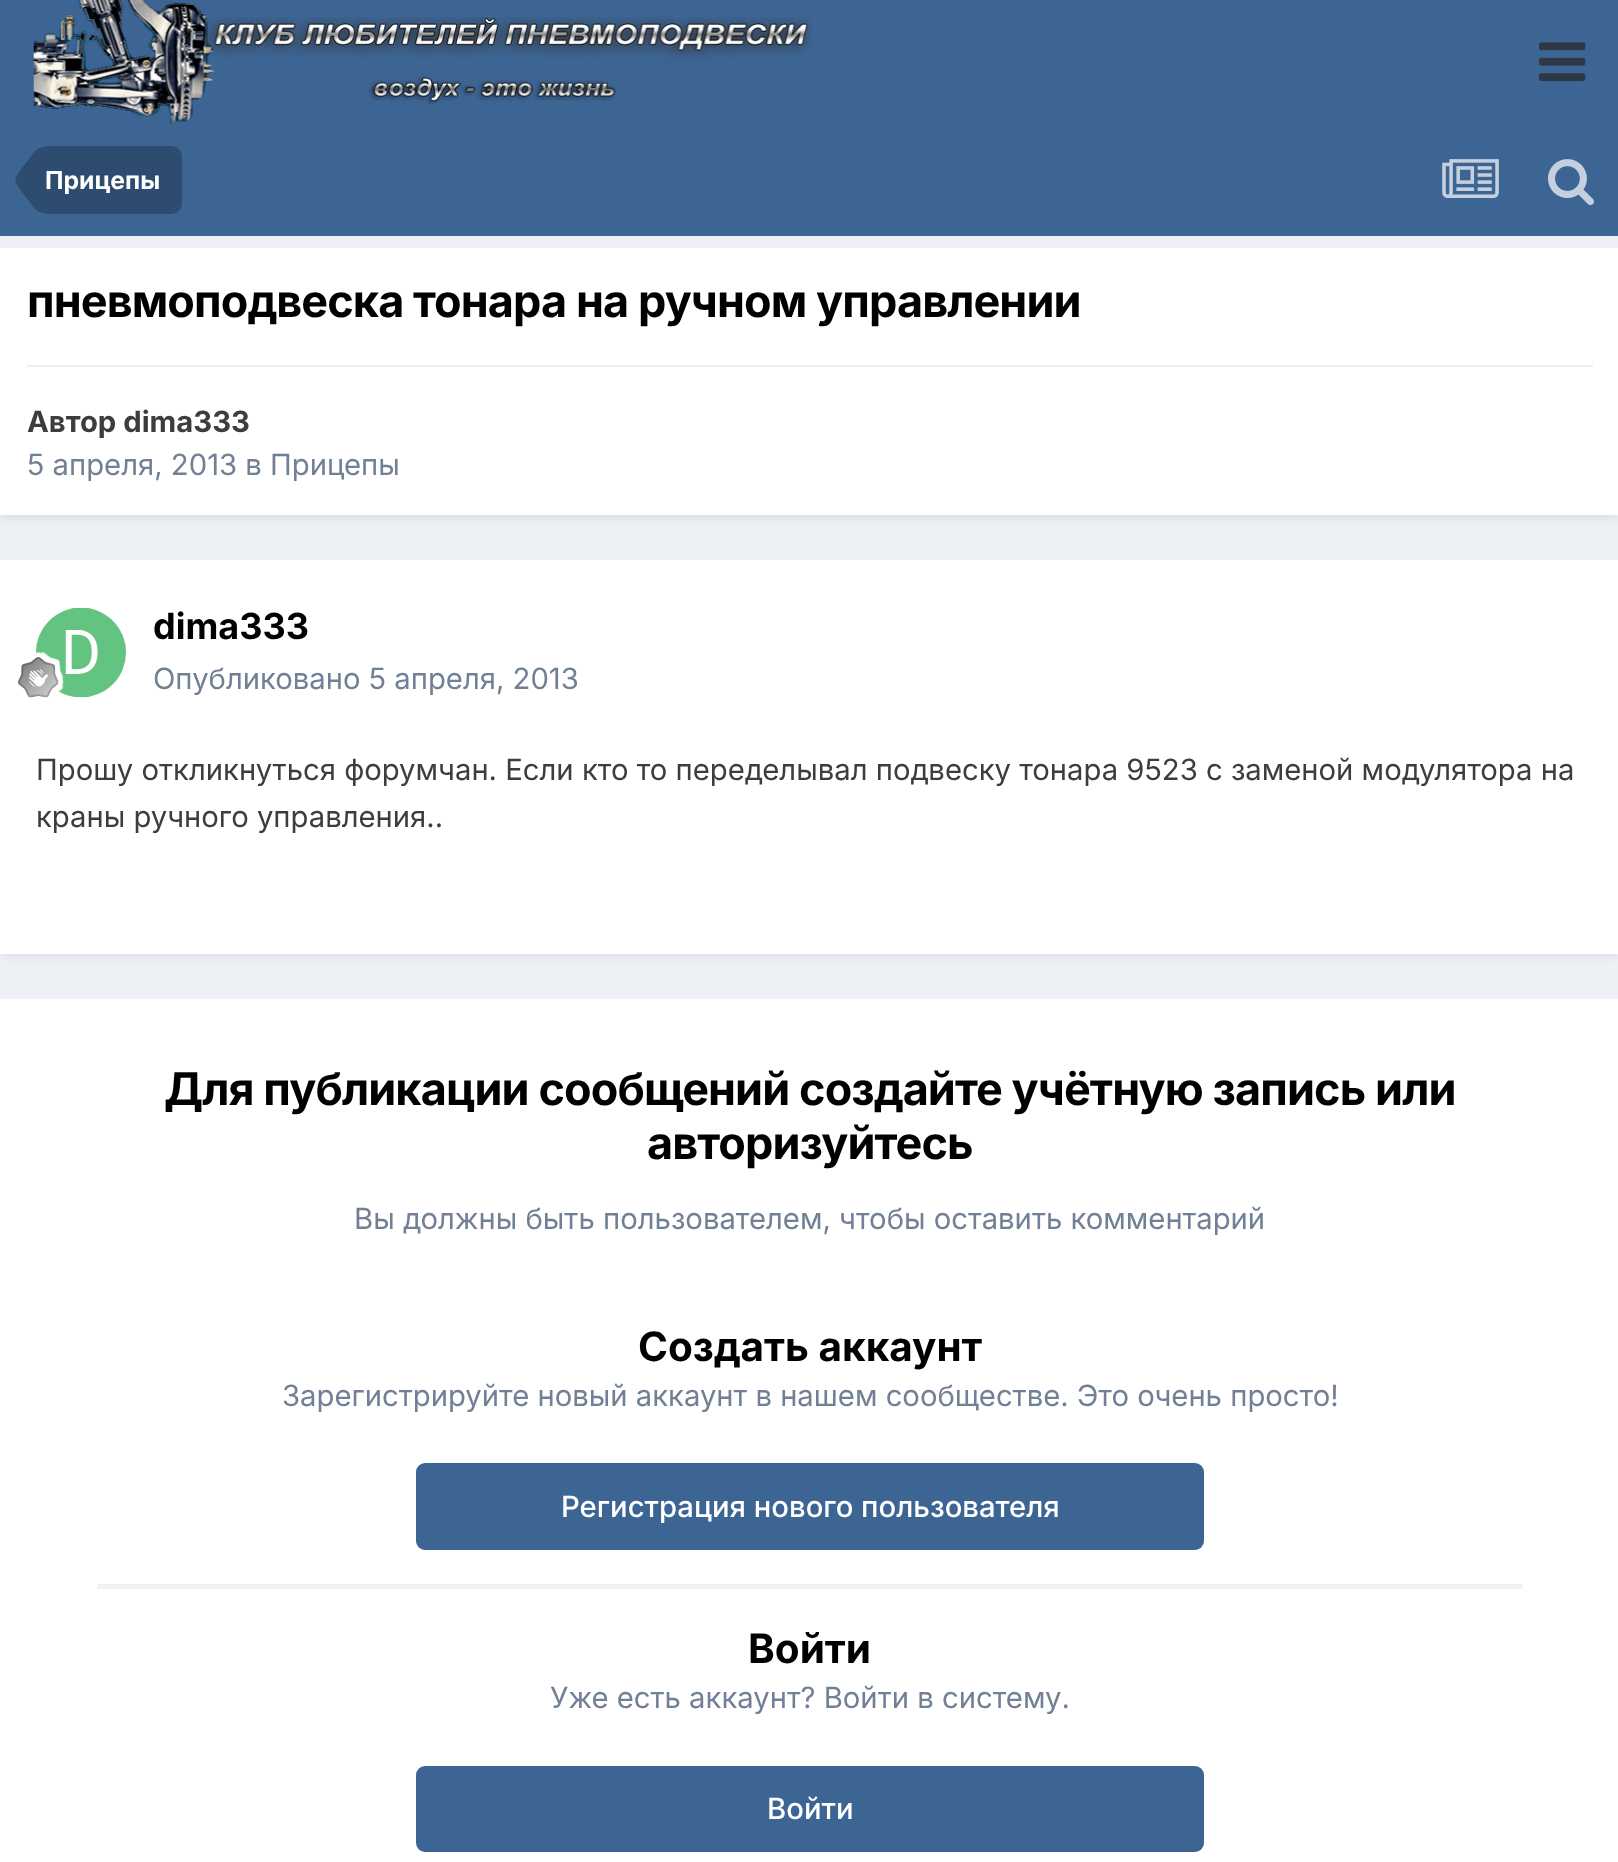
(async () => {
  const canvas = document.querySelector("canvas");
  canvas.width = 1618;
  canvas.height = 1862;
  const ctx = canvas.getContext("2d");
  ctx.miterLimit = 4;
  ctx.fontKerning = "normal";
  async function loadImage(src) {
    const img = new Image();
    img.src = src;
    await img.decode();
    return img;
  }
  let path;

  ctx.fillStyle = "#edf0f4";
  ctx.fillRect(0, 0, 1618, 1862);
  ctx.fillStyle = "#3d6594";
  ctx.fillRect(0, 0, 1618, 236);
  ctx.drawImage(await loadImage("img/1.png"), 33, 0, 779, 124);
  ctx.drawImage(await loadImage("img/2.png"), 1539, 42, 47, 39);
  ctx.fillStyle = "#2e4c6f";
  ctx.beginPath();
  ctx.roundRect(45, 146, 137, 68, [0, 11, 11, 0]);
  ctx.fill();
  path = new Path2D("M45 180V213C40 213 35.5 210.5 32 205L21.5 191.5L16 183.5C15.5 182 15.5 181 15.5 180Z");
  ctx.fill(path);
  path = new Path2D("M45 180H15.5C15.5 179 15.5 178 16 176.5L21.5 168.5L32 155C35.5 149.5 40 147 45 147Z");
  ctx.fill(path);
  ctx.drawImage(await loadImage("img/3.png"), 1442, 159, 57, 39);
  ctx.drawImage(await loadImage("img/4.png"), 1548, 159, 46, 46);
  ctx.fillStyle = "rgba(45, 55, 72, 0.1)";
  ctx.filter = "blur(4.5px)";
  ctx.beginPath();
  ctx.rect(2, 254, 1616, 264);
  ctx.fill();
  ctx.filter = "none";
  ctx.fillStyle = "#ffffff";
  ctx.fillRect(0, 248, 1618, 267);
  ctx.fillStyle = "#efefef";
  ctx.fillRect(27, 365, 1566, 2);
  ctx.fillStyle = "rgba(45, 55, 72, 0.1)";
  ctx.filter = "blur(4.5px)";
  ctx.beginPath();
  ctx.rect(2, 567, 1616, 389);
  ctx.fill();
  ctx.filter = "none";
  ctx.fillStyle = "#ffffff";
  ctx.fillRect(0, 560, 1618, 394);
  ctx.drawImage(await loadImage("img/5.png"), 36, 608, 90, 90);
  ctx.drawImage(await loadImage("img/6.png"), 18, 652, 46, 46);
  ctx.fillRect(0, 999, 1618, 863);
  ctx.fillStyle = "#f2f2f2";
  ctx.fillRect(97, 1584, 1426, 5);
  ctx.fillStyle = "#3d6594";
  ctx.beginPath();
  ctx.roundRect(416, 1463, 788, 87, 9);
  ctx.fill();
  ctx.beginPath();
  ctx.roundRect(416, 1766, 788, 86, 9);
  ctx.fill();
  ctx.font = "bold 24.75px Inter";
  ctx.fillStyle = "#ffffff";
  ctx.fillText("Прицепы", 45, 189);
  ctx.letterSpacing = "-0.9px";
  ctx.font = "bold 45px Inter";
  ctx.fillStyle = "#000000";
  ctx.fillText("пневмоподвеска тонара на ручном управлении", 27, 317);
  ctx.letterSpacing = "0px";
  ctx.font = "bold 29.25px Inter";
  ctx.fillStyle = "#3d3d3d";
  ctx.fillText("Автор dima333", 27, 432);
  ctx.font = "29.25px Inter";
  ctx.fillStyle = "#718096";
  ctx.fillText("5 апреля, 2013 в Прицепы", 27, 475);
  ctx.font = "bold 36px Inter";
  ctx.fillStyle = "#000000";
  ctx.fillText("dima333", 153, 639);
  ctx.font = "29.25px Inter";
  ctx.fillStyle = "#718096";
  ctx.fillText("Опубликовано 5 апреля, 2013", 153, 689);
  ctx.fillStyle = "#3d3d3d";
  ctx.fillText("Прошу откликнуться форумчан. Если кто то переделывал подвеску тонара 9523 с заменой модулятора на", 36, 780);
  ctx.fillText("краны ручного управления..", 36, 827);
  ctx.letterSpacing = "-0.9px";
  ctx.font = "bold 45px Inter";
  ctx.fillStyle = "#000000";
  ctx.fillText("Для публикации сообщений создайте учётную запись или", 164, 1105);
  ctx.fillText("авторизуйтесь", 647, 1159);
  ctx.letterSpacing = "0px";
  ctx.font = "29.25px Inter";
  ctx.fillStyle = "#718096";
  ctx.fillText("Вы должны быть пользователем, чтобы оставить комментарий", 354, 1229);
  ctx.font = "bold 40.5px Inter";
  ctx.fillStyle = "#000000";
  ctx.fillText("Создать аккаунт", 638, 1361);
  ctx.font = "29.25px Inter";
  ctx.fillStyle = "#718096";
  ctx.fillText("Зарегистрируйте новый аккаунт в нашем сообществе. Это очень просто!", 282, 1406);
  ctx.font = "500 29.25px Inter";
  ctx.fillStyle = "#ffffff";
  ctx.fillText("Регистрация нового пользователя", 561, 1517);
  ctx.font = "bold 40.5px Inter";
  ctx.fillStyle = "#000000";
  ctx.fillText("Войти", 748, 1663);
  ctx.font = "29.25px Inter";
  ctx.fillStyle = "#718096";
  ctx.fillText("Уже есть аккаунт? Войти в систему.", 550, 1708);
  ctx.font = "500 29.25px Inter";
  ctx.fillStyle = "#ffffff";
  ctx.fillText("Войти", 767, 1819);
})();
